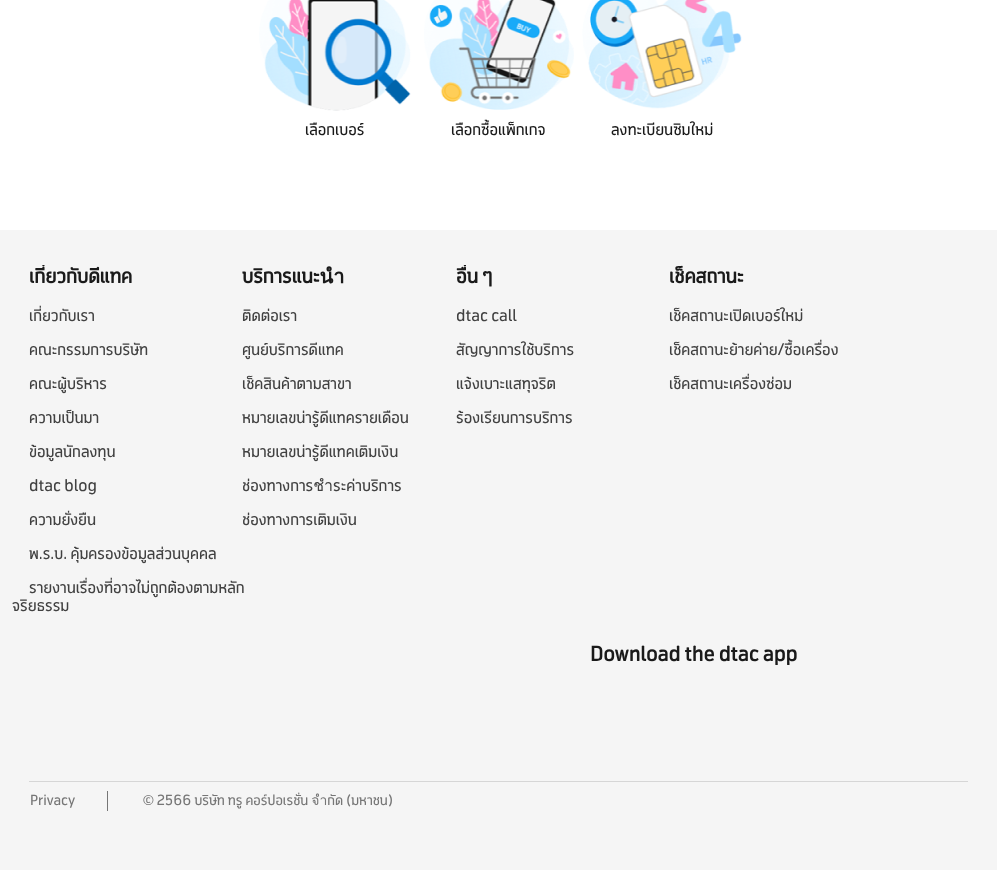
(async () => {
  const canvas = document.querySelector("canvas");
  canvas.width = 997;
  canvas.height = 870;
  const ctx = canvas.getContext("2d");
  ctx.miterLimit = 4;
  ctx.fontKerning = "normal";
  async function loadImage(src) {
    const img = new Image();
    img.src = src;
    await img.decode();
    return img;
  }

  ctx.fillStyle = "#ffffff";
  ctx.fillRect(0, 0, 997, 870);
  ctx.drawImage(await loadImage("img/1.png"), 259, 0, 152, 111);
  ctx.drawImage(await loadImage("img/2.png"), 424, 0, 150, 110);
  ctx.drawImage(await loadImage("img/3.png"), 582, 0, 160, 109);
  for (const [x, y, w, h, color] of [
    [0, 230, 997, 640, "#f5f5f5"],
    [29, 781, 939, 1, "#d6d6d6"],
    [107, 791, 1, 20, "#767676"],
  ]) {
    ctx.fillStyle = color;
    ctx.fillRect(x, y, w, h);
  }
  ctx.font = "16px 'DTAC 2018'";
  ctx.fillStyle = "#1a1a1a";
  for (const [text, x, y] of [
    ["เลือกเบอร์", 305, 135],
    ["เลือกซื้อแพ็กเกจ", 451, 135],
    ["ลงทะเบียนซิมใหม่", 611, 135],
  ]) {
    ctx.fillText(text, x, y);
  }
  ctx.save();
  ctx.beginPath();
  ctx.rect(12, 265, 237, 359);
  ctx.clip();
  ctx.font = "bold 20px 'DTAC 2018'";
  ctx.fillText("เกี่ยวกับดีแทค", 29, 283);
  ctx.restore();
  ctx.fillStyle = "#414141";
  for (const [text, x, y] of [
    ["เกี่ยวกับเรา", 29, 321],
    ["คณะกรรมการบริษัท", 29, 355],
    ["คณะผู้บริหาร", 29, 389],
    ["ความเป็นมา", 29, 423],
    ["ข้อมูลนักลงทุน", 29, 457],
    ["dtac blog", 29, 491],
    ["ความยั่งยืน", 29, 525],
    ["พ.ร.บ. คุ้มครองข้อมูลส่วนบุคคล", 29, 559],
    ["รายงานเรื่องที่อาจไม่ถูกต้องตามหลัก", 29, 593],
    ["จริยธรรม", 12, 611],
  ]) {
    ctx.fillText(text, x, y);
  }
  ctx.font = "bold 20px 'DTAC 2018'";
  ctx.fillStyle = "#1a1a1a";
  ctx.fillText("บริการแนะนำ", 242, 283);
  ctx.font = "16px 'DTAC 2018'";
  ctx.fillStyle = "#414141";
  for (const [text, x, y] of [
    ["ติดต่อเรา", 242, 321],
    ["ศูนย์บริการดีแทค", 242, 355],
    ["เช็คสินค้าตามสาขา", 242, 389],
    ["หมายเลขน่ารู้ดีแทครายเดือน", 242, 423],
    ["หมายเลขน่ารู้ดีแทคเติมเงิน", 242, 457],
    ["ช่องทางการชำระค่าบริการ", 242, 491],
    ["ช่องทางการเติมเงิน", 242, 525],
  ]) {
    ctx.fillText(text, x, y);
  }
  ctx.save();
  ctx.beginPath();
  ctx.rect(439, 265, 237, 171);
  ctx.clip();
  ctx.font = "bold 20px 'DTAC 2018'";
  ctx.fillStyle = "#1a1a1a";
  ctx.fillText("อื่น ๆ", 456, 283);
  ctx.restore();
  for (const [text, x, y] of [
    ["dtac call", 456, 321],
    ["สัญญาการใช้บริการ", 456, 355],
    ["แจ้งเบาะแสทุจริต", 456, 389],
    ["ร้องเรียนการบริการ", 456, 423],
  ]) {
    ctx.fillText(text, x, y);
  }
  ctx.font = "bold 20px 'DTAC 2018'";
  ctx.fillStyle = "#1a1a1a";
  ctx.fillText("เช็คสถานะ", 669, 283);
  ctx.font = "16px 'DTAC 2018'";
  ctx.fillStyle = "#414141";
  for (const [text, x, y] of [
    ["เช็คสถานะเปิดเบอร์ใหม่", 669, 321],
    ["เช็คสถานะย้ายค่าย/ซื้อเครื่อง", 669, 355],
    ["เช็คสถานะเครื่องซ่อม", 669, 389],
  ]) {
    ctx.fillText(text, x, y);
  }
  ctx.font = "bold 20px 'DTAC 2018'";
  ctx.fillStyle = "#1a1a1a";
  ctx.fillText("Download the dtac app", 590, 661);
  ctx.font = "14px 'DTAC 2018'";
  ctx.fillStyle = "#767676";
  ctx.fillText("Privacy", 30, 805);
  ctx.fillText("© 2566 บริษัท ทรู คอร์ปอเรชั่น จำกัด (มหาชน)", 143, 805);
})();
